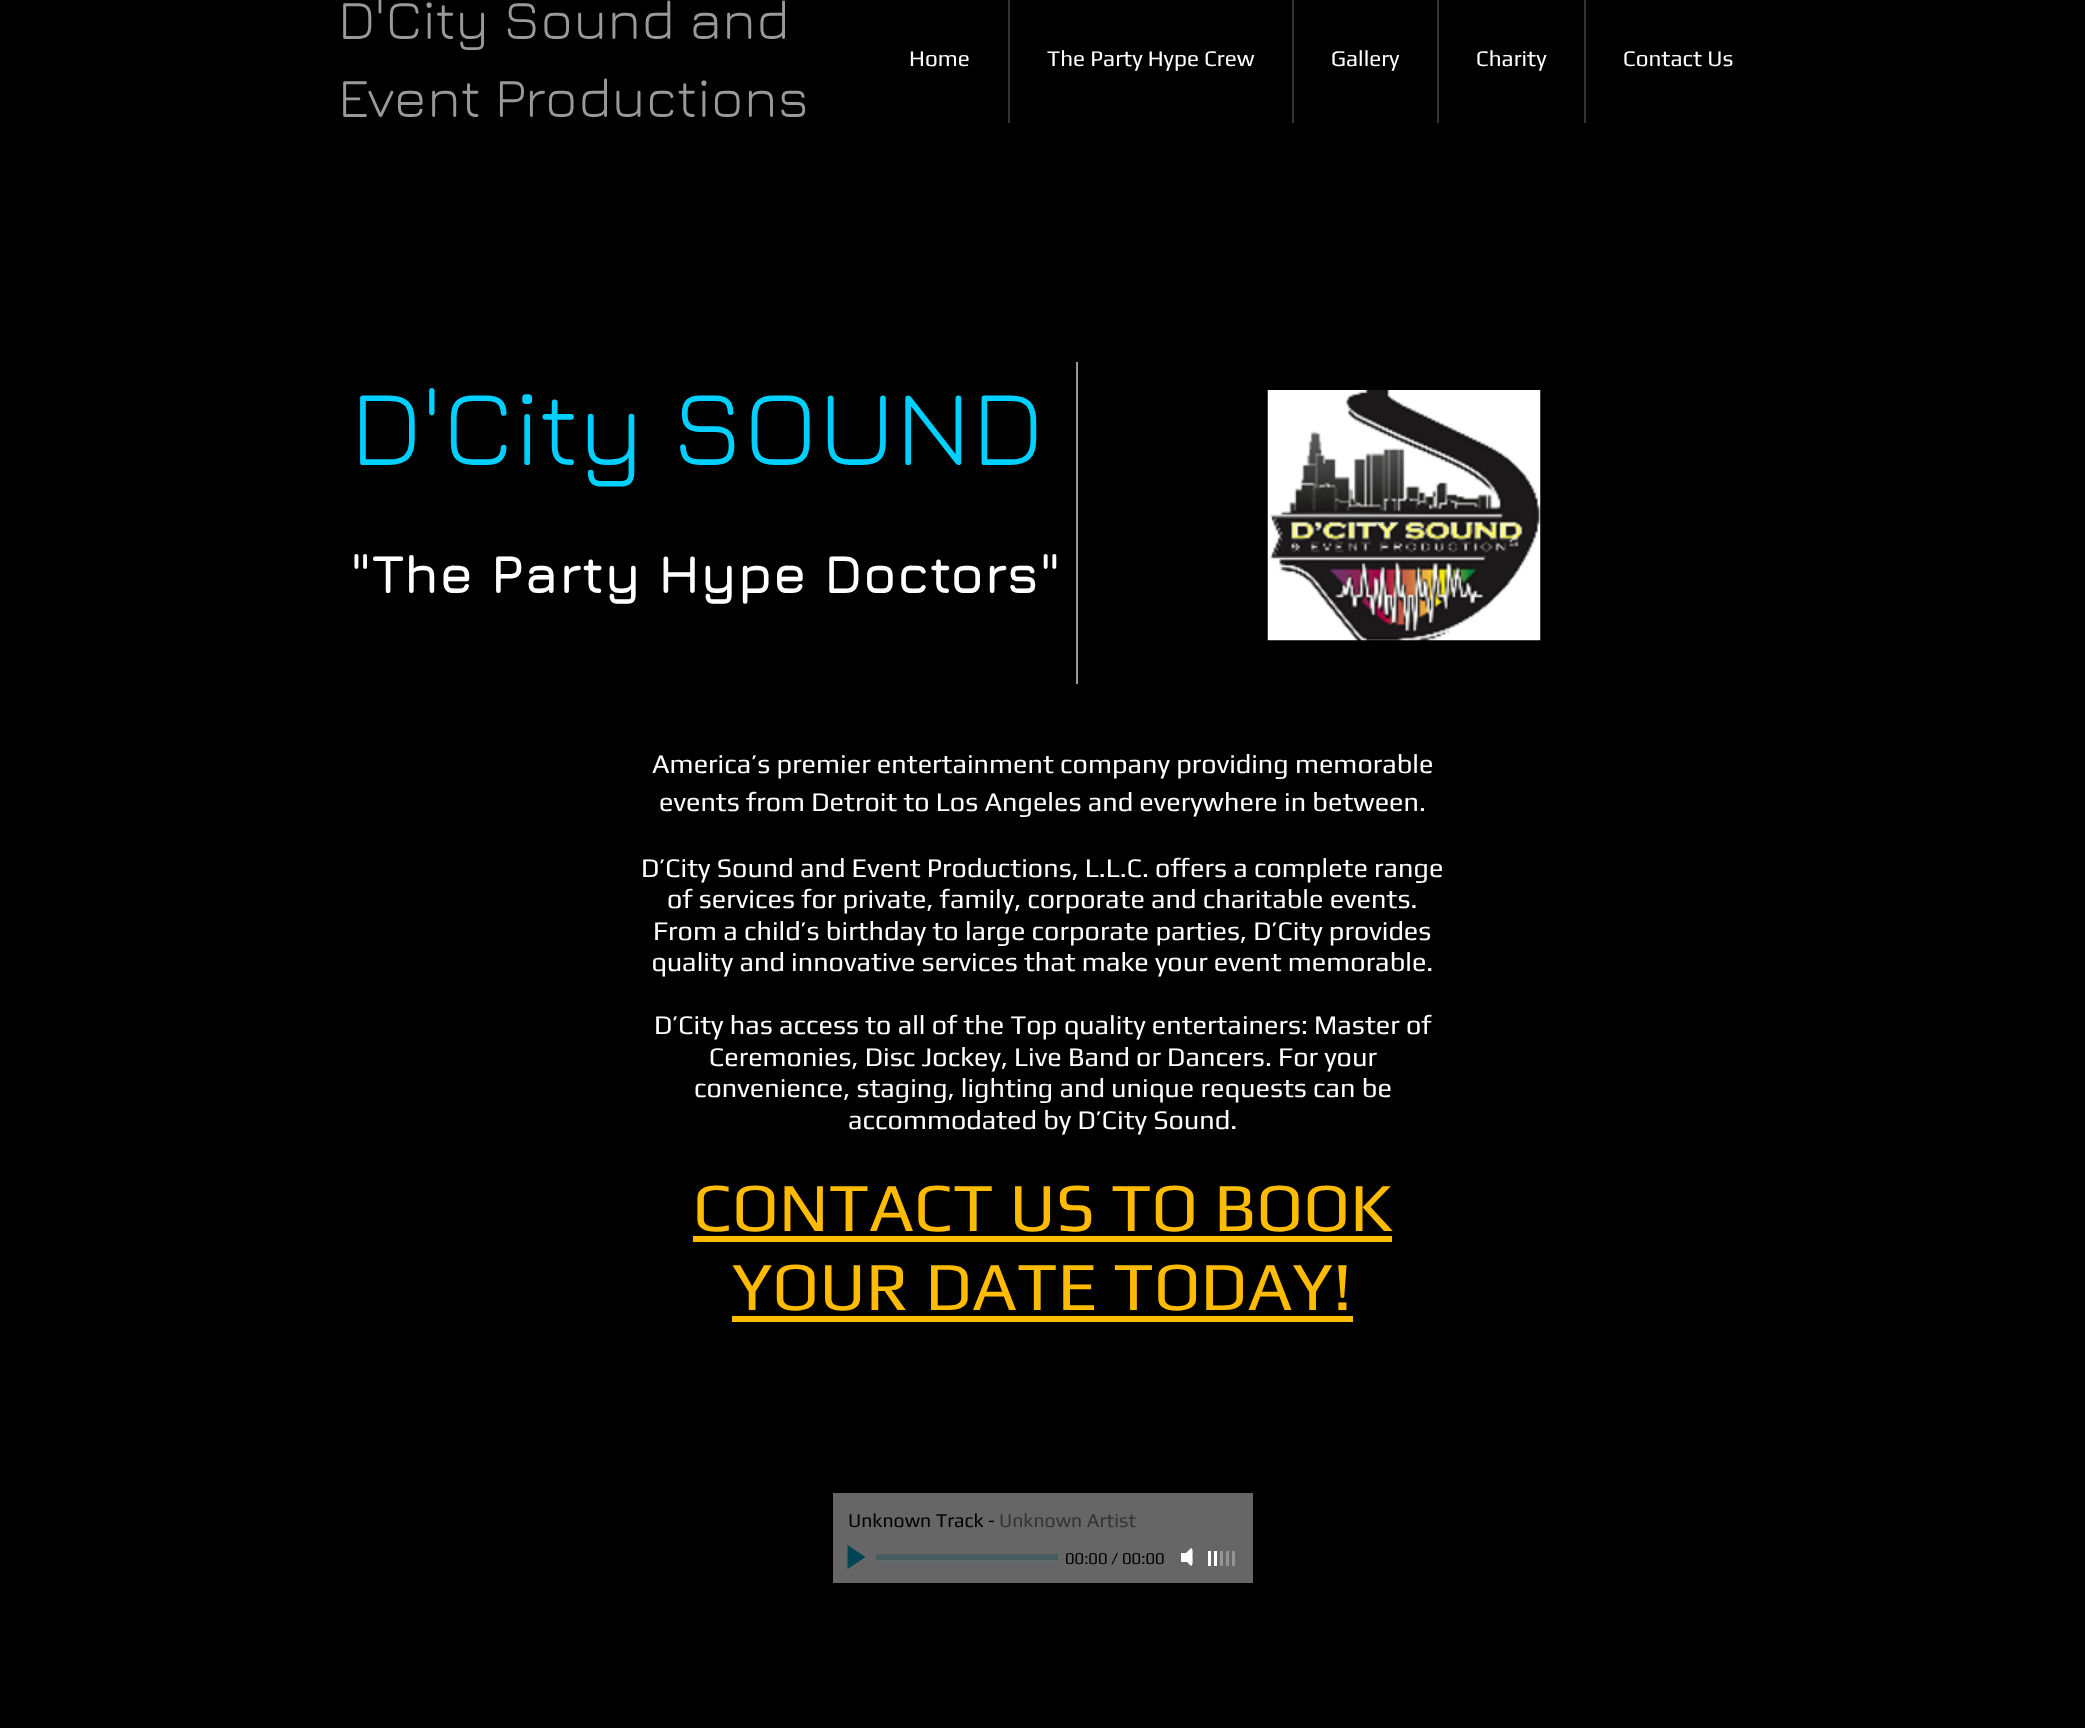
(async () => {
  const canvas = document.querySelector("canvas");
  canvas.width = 2085;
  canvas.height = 1728;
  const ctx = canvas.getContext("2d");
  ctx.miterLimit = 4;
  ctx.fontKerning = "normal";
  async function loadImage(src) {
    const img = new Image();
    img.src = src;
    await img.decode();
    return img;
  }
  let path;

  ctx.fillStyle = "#000000";
  ctx.fillRect(0, 0, 2085, 1728);
  for (const [x, y, w, h, color] of [
    [1008, 0, 2, 123, "#333333"],
    [1292, 0, 2, 123, "#333333"],
    [1437, 0, 2, 123, "#333333"],
    [1584, 0, 2, 123, "#333333"],
    [1076, 362, 2, 322, "#999999"],
  ]) {
    ctx.fillStyle = color;
    ctx.fillRect(x, y, w, h);
  }
  ctx.drawImage(await loadImage("img/1.png"), 1267, 390, 274, 251);
  for (const [x, y, w, h, color] of [
    [693, 1236, 699, 6, "#ffbb00"],
    [732, 1316, 621, 6, "#ffbb00"],
    [833, 1493, 420, 90, "#666666"],
  ]) {
    ctx.fillStyle = color;
    ctx.fillRect(x, y, w, h);
  }
  ctx.fillStyle = "#004554";
  path = new Path2D("M847.5 1569V1545L865.5 1557Z");
  ctx.fill(path);
  ctx.fillStyle = "#475c61";
  ctx.fillRect(876, 1554, 182, 6);
  ctx.fillStyle = "#5e6d70";
  ctx.fillRect(876, 1560, 182, 2);
  ctx.fillStyle = "#ffffff";
  path = new Path2D("M1182 1557L1191 1566C1193.5 1564 1192.5 1560 1192.5 1557C1192.5 1554 1193.5 1550 1191 1548Z");
  ctx.fill(path);
  for (const [x, y, w, h, color] of [
    [1181, 1553, 6, 9, "#ffffff"],
    [1208, 1551, 3, 15, "#ffffff"],
    [1214, 1551, 3, 15, "#ffffff"],
    [1220, 1551, 3, 15, "#949494"],
    [1226, 1551, 3, 15, "#949494"],
    [1232, 1551, 3, 15, "#949494"],
  ]) {
    ctx.fillStyle = color;
    ctx.fillRect(x, y, w, h);
  }
  ctx.font = "55.5px Jura";
  ctx.fillStyle = "#999999";
  ctx.fillText("D'City Sound and", 338, 39);
  ctx.fillText("Event Productions", 338, 117);
  ctx.font = "22.5px Play";
  ctx.fillStyle = "#ffffff";
  for (const [text, x, y] of [
    ["Home", 909, 66],
    ["The Party Hype Crew", 1047, 66],
    ["Gallery", 1331, 66],
    ["Charity", 1476, 66],
    ["Contact Us", 1623, 66],
  ]) {
    ctx.fillText(text, x, y);
  }
  ctx.font = "108px Jura";
  ctx.fillStyle = "#00d0ff";
  ctx.fillText("D'City SOUND", 350, 465);
  ctx.font = "bold 54px Jura";
  ctx.fillStyle = "#ffffff";
  ctx.fillText("\"The Party Hype Doctors\"", 350, 593);
  ctx.font = "27px Play";
  for (const [text, x, y] of [
    ["America’s premier entertainment company providing memorable", 652, 773],
    ["events from Detroit to Los Angeles and everywhere in between.", 659, 811],
    ["D’City Sound and Event Productions, L.L.C. offers a complete range", 641, 877],
    ["of services for private, family, corporate and charitable events.", 667, 908],
    ["From a child’s birthday to large corporate parties, D’City provides", 653, 940],
    ["quality and innovative services that make your event memorable.", 651, 971],
    ["D’City has access to all of the Top quality entertainers: Master of", 654, 1034],
    ["Ceremonies, Disc Jockey, Live Band or Dancers. For your", 709, 1066],
    ["convenience, staging, lighting and unique requests can be", 694, 1097],
    ["accommodated by D’City Sound.", 848, 1129],
  ]) {
    ctx.fillText(text, x, y);
  }
  ctx.font = "69px Play";
  ctx.fillStyle = "#ffbb00";
  ctx.fillText("CONTACT US TO BOOK", 693, 1231);
  ctx.fillText("YOUR DATE TODAY!", 732, 1310);
  ctx.font = "19.5px Play";
  ctx.fillStyle = "#000000";
  ctx.fillText("Unknown Track -", 848, 1527);
  ctx.fillStyle = "#333333";
  ctx.fillText("Unknown Artist", 999, 1527);
  ctx.font = "16.5px Play";
  ctx.fillStyle = "#000000";
  ctx.fillText("00:00 / 00:00", 1065, 1564);
})();
